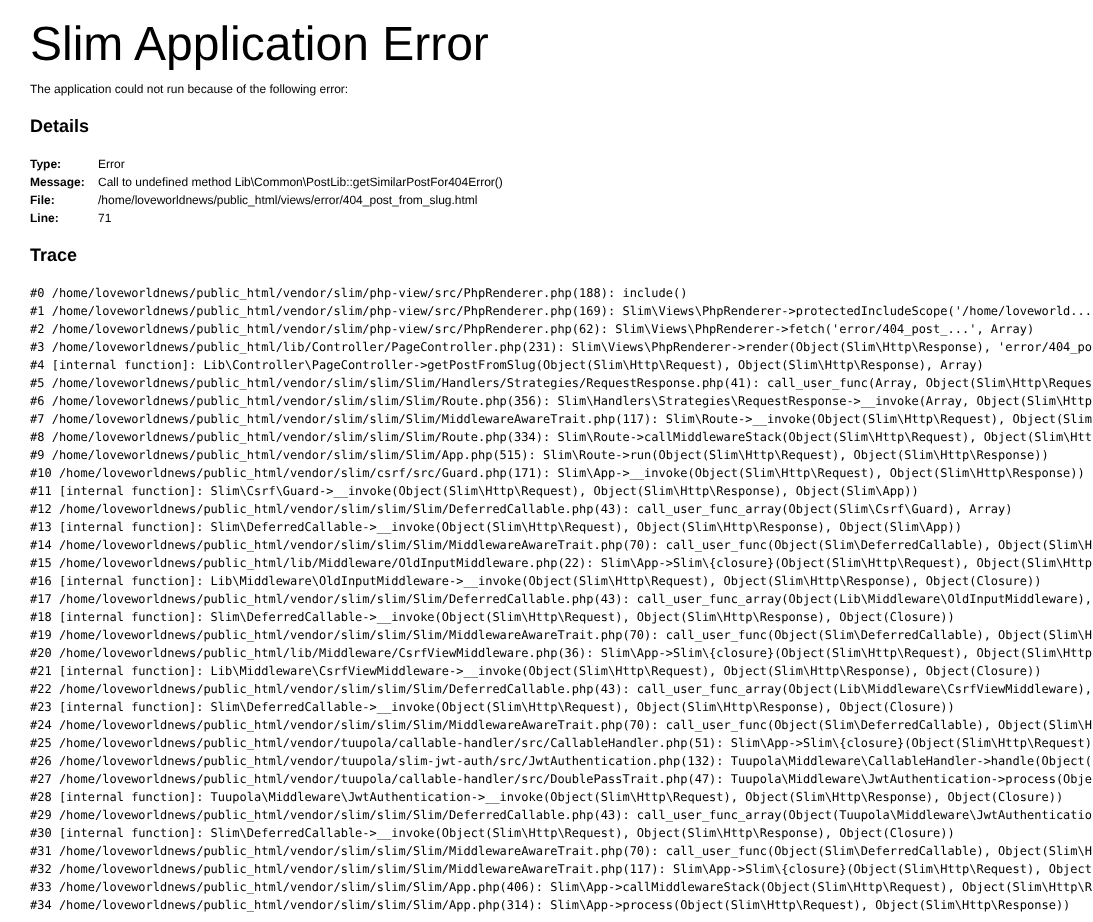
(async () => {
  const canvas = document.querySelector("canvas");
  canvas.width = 1093;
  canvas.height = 922;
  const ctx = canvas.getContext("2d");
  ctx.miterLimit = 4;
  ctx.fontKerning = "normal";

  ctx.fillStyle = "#ffffff";
  ctx.fillRect(0, 0, 1093, 922);
  ctx.font = "48px Liberation Sans";
  ctx.fillStyle = "#000000";
  ctx.fillText("Slim Application Error", 30, 60);
  ctx.font = "12px Liberation Sans";
  ctx.fillText("The application could not run because of the following error:", 30, 93);
  ctx.font = "bold 18px Liberation Sans";
  ctx.fillText("Details", 30, 132);
  ctx.font = "bold 12px Liberation Sans";
  ctx.fillText("Type:", 30, 168);
  ctx.font = "12px Liberation Sans";
  ctx.fillText("Error", 98, 168);
  ctx.font = "bold 12px Liberation Sans";
  ctx.fillText("Message:", 30, 186);
  ctx.font = "12px Liberation Sans";
  ctx.fillText("Call to undefined method Lib\\Common\\PostLib::getSimilarPostFor404Error()", 98, 186);
  ctx.font = "bold 12px Liberation Sans";
  ctx.fillText("File:", 30, 204);
  ctx.font = "12px Liberation Sans";
  ctx.fillText("/home/loveworldnews/public_html/views/error/404_post_from_slug.html", 98, 204);
  ctx.font = "bold 12px Liberation Sans";
  ctx.fillText("Line:", 30, 222);
  ctx.font = "12px Liberation Sans";
  ctx.fillText("71", 98, 222);
  ctx.font = "bold 18px Liberation Sans";
  ctx.fillText("Trace", 30, 261);
  ctx.font = "12px DejaVu Sans Mono";
  for (const [text, x, y] of [
    ["#0 /home/loveworldnews/public_html/vendor/slim/php-view/src/PhpRenderer.php(188): include()", 30, 297],
    ["#1 /home/loveworldnews/public_html/vendor/slim/php-view/src/PhpRenderer.php(169): Slim\\Views\\PhpRenderer->protectedIncludeScope('/home/loveworld...", 30, 315],
    ["#2 /home/loveworldnews/public_html/vendor/slim/php-view/src/PhpRenderer.php(62): Slim\\Views\\PhpRenderer->fetch('error/404_post_...', Array)", 30, 333],
    ["#3 /home/loveworldnews/public_html/lib/Controller/PageController.php(231): Slim\\Views\\PhpRenderer->render(Object(Slim\\Http\\Response), 'error/404_po", 30, 351],
    ["#4 [internal function]: Lib\\Controller\\PageController->getPostFromSlug(Object(Slim\\Http\\Request), Object(Slim\\Http\\Response), Array)", 30, 369],
    ["#5 /home/loveworldnews/public_html/vendor/slim/slim/Slim/Handlers/Strategies/RequestResponse.php(41): call_user_func(Array, Object(Slim\\Http\\Reques", 30, 387],
    ["#6 /home/loveworldnews/public_html/vendor/slim/slim/Slim/Route.php(356): Slim\\Handlers\\Strategies\\RequestResponse->__invoke(Array, Object(Slim\\Http", 30, 405],
    ["#7 /home/loveworldnews/public_html/vendor/slim/slim/Slim/MiddlewareAwareTrait.php(117): Slim\\Route->__invoke(Object(Slim\\Http\\Request), Object(Slim", 30, 423],
    ["#8 /home/loveworldnews/public_html/vendor/slim/slim/Slim/Route.php(334): Slim\\Route->callMiddlewareStack(Object(Slim\\Http\\Request), Object(Slim\\Htt", 30, 441],
    ["#9 /home/loveworldnews/public_html/vendor/slim/slim/Slim/App.php(515): Slim\\Route->run(Object(Slim\\Http\\Request), Object(Slim\\Http\\Response))", 30, 459],
    ["#10 /home/loveworldnews/public_html/vendor/slim/csrf/src/Guard.php(171): Slim\\App->__invoke(Object(Slim\\Http\\Request), Object(Slim\\Http\\Response))", 30, 477],
    ["#11 [internal function]: Slim\\Csrf\\Guard->__invoke(Object(Slim\\Http\\Request), Object(Slim\\Http\\Response), Object(Slim\\App))", 30, 495],
    ["#12 /home/loveworldnews/public_html/vendor/slim/slim/Slim/DeferredCallable.php(43): call_user_func_array(Object(Slim\\Csrf\\Guard), Array)", 30, 513],
    ["#13 [internal function]: Slim\\DeferredCallable->__invoke(Object(Slim\\Http\\Request), Object(Slim\\Http\\Response), Object(Slim\\App))", 30, 531],
    ["#14 /home/loveworldnews/public_html/vendor/slim/slim/Slim/MiddlewareAwareTrait.php(70): call_user_func(Object(Slim\\DeferredCallable), Object(Slim\\H", 30, 549],
    ["#15 /home/loveworldnews/public_html/lib/Middleware/OldInputMiddleware.php(22): Slim\\App->Slim\\{closure}(Object(Slim\\Http\\Request), Object(Slim\\Http", 30, 567],
    ["#16 [internal function]: Lib\\Middleware\\OldInputMiddleware->__invoke(Object(Slim\\Http\\Request), Object(Slim\\Http\\Response), Object(Closure))", 30, 585],
    ["#17 /home/loveworldnews/public_html/vendor/slim/slim/Slim/DeferredCallable.php(43): call_user_func_array(Object(Lib\\Middleware\\OldInputMiddleware),", 30, 603],
    ["#18 [internal function]: Slim\\DeferredCallable->__invoke(Object(Slim\\Http\\Request), Object(Slim\\Http\\Response), Object(Closure))", 30, 621],
    ["#19 /home/loveworldnews/public_html/vendor/slim/slim/Slim/MiddlewareAwareTrait.php(70): call_user_func(Object(Slim\\DeferredCallable), Object(Slim\\H", 30, 639],
    ["#20 /home/loveworldnews/public_html/lib/Middleware/CsrfViewMiddleware.php(36): Slim\\App->Slim\\{closure}(Object(Slim\\Http\\Request), Object(Slim\\Http", 30, 657],
    ["#21 [internal function]: Lib\\Middleware\\CsrfViewMiddleware->__invoke(Object(Slim\\Http\\Request), Object(Slim\\Http\\Response), Object(Closure))", 30, 675],
    ["#22 /home/loveworldnews/public_html/vendor/slim/slim/Slim/DeferredCallable.php(43): call_user_func_array(Object(Lib\\Middleware\\CsrfViewMiddleware),", 30, 693],
    ["#23 [internal function]: Slim\\DeferredCallable->__invoke(Object(Slim\\Http\\Request), Object(Slim\\Http\\Response), Object(Closure))", 30, 711],
    ["#24 /home/loveworldnews/public_html/vendor/slim/slim/Slim/MiddlewareAwareTrait.php(70): call_user_func(Object(Slim\\DeferredCallable), Object(Slim\\H", 30, 729],
    ["#25 /home/loveworldnews/public_html/vendor/tuupola/callable-handler/src/CallableHandler.php(51): Slim\\App->Slim\\{closure}(Object(Slim\\Http\\Request)", 30, 747],
    ["#26 /home/loveworldnews/public_html/vendor/tuupola/slim-jwt-auth/src/JwtAuthentication.php(132): Tuupola\\Middleware\\CallableHandler->handle(Object(", 30, 765],
    ["#27 /home/loveworldnews/public_html/vendor/tuupola/callable-handler/src/DoublePassTrait.php(47): Tuupola\\Middleware\\JwtAuthentication->process(Obje", 30, 783],
    ["#28 [internal function]: Tuupola\\Middleware\\JwtAuthentication->__invoke(Object(Slim\\Http\\Request), Object(Slim\\Http\\Response), Object(Closure))", 30, 801],
    ["#29 /home/loveworldnews/public_html/vendor/slim/slim/Slim/DeferredCallable.php(43): call_user_func_array(Object(Tuupola\\Middleware\\JwtAuthenticatio", 30, 819],
    ["#30 [internal function]: Slim\\DeferredCallable->__invoke(Object(Slim\\Http\\Request), Object(Slim\\Http\\Response), Object(Closure))", 30, 837],
    ["#31 /home/loveworldnews/public_html/vendor/slim/slim/Slim/MiddlewareAwareTrait.php(70): call_user_func(Object(Slim\\DeferredCallable), Object(Slim\\H", 30, 855],
    ["#32 /home/loveworldnews/public_html/vendor/slim/slim/Slim/MiddlewareAwareTrait.php(117): Slim\\App->Slim\\{closure}(Object(Slim\\Http\\Request), Object", 30, 873],
    ["#33 /home/loveworldnews/public_html/vendor/slim/slim/Slim/App.php(406): Slim\\App->callMiddlewareStack(Object(Slim\\Http\\Request), Object(Slim\\Http\\R", 30, 891],
    ["#34 /home/loveworldnews/public_html/vendor/slim/slim/Slim/App.php(314): Slim\\App->process(Object(Slim\\Http\\Request), Object(Slim\\Http\\Response))", 30, 909],
  ]) {
    ctx.fillText(text, x, y);
  }
})();
